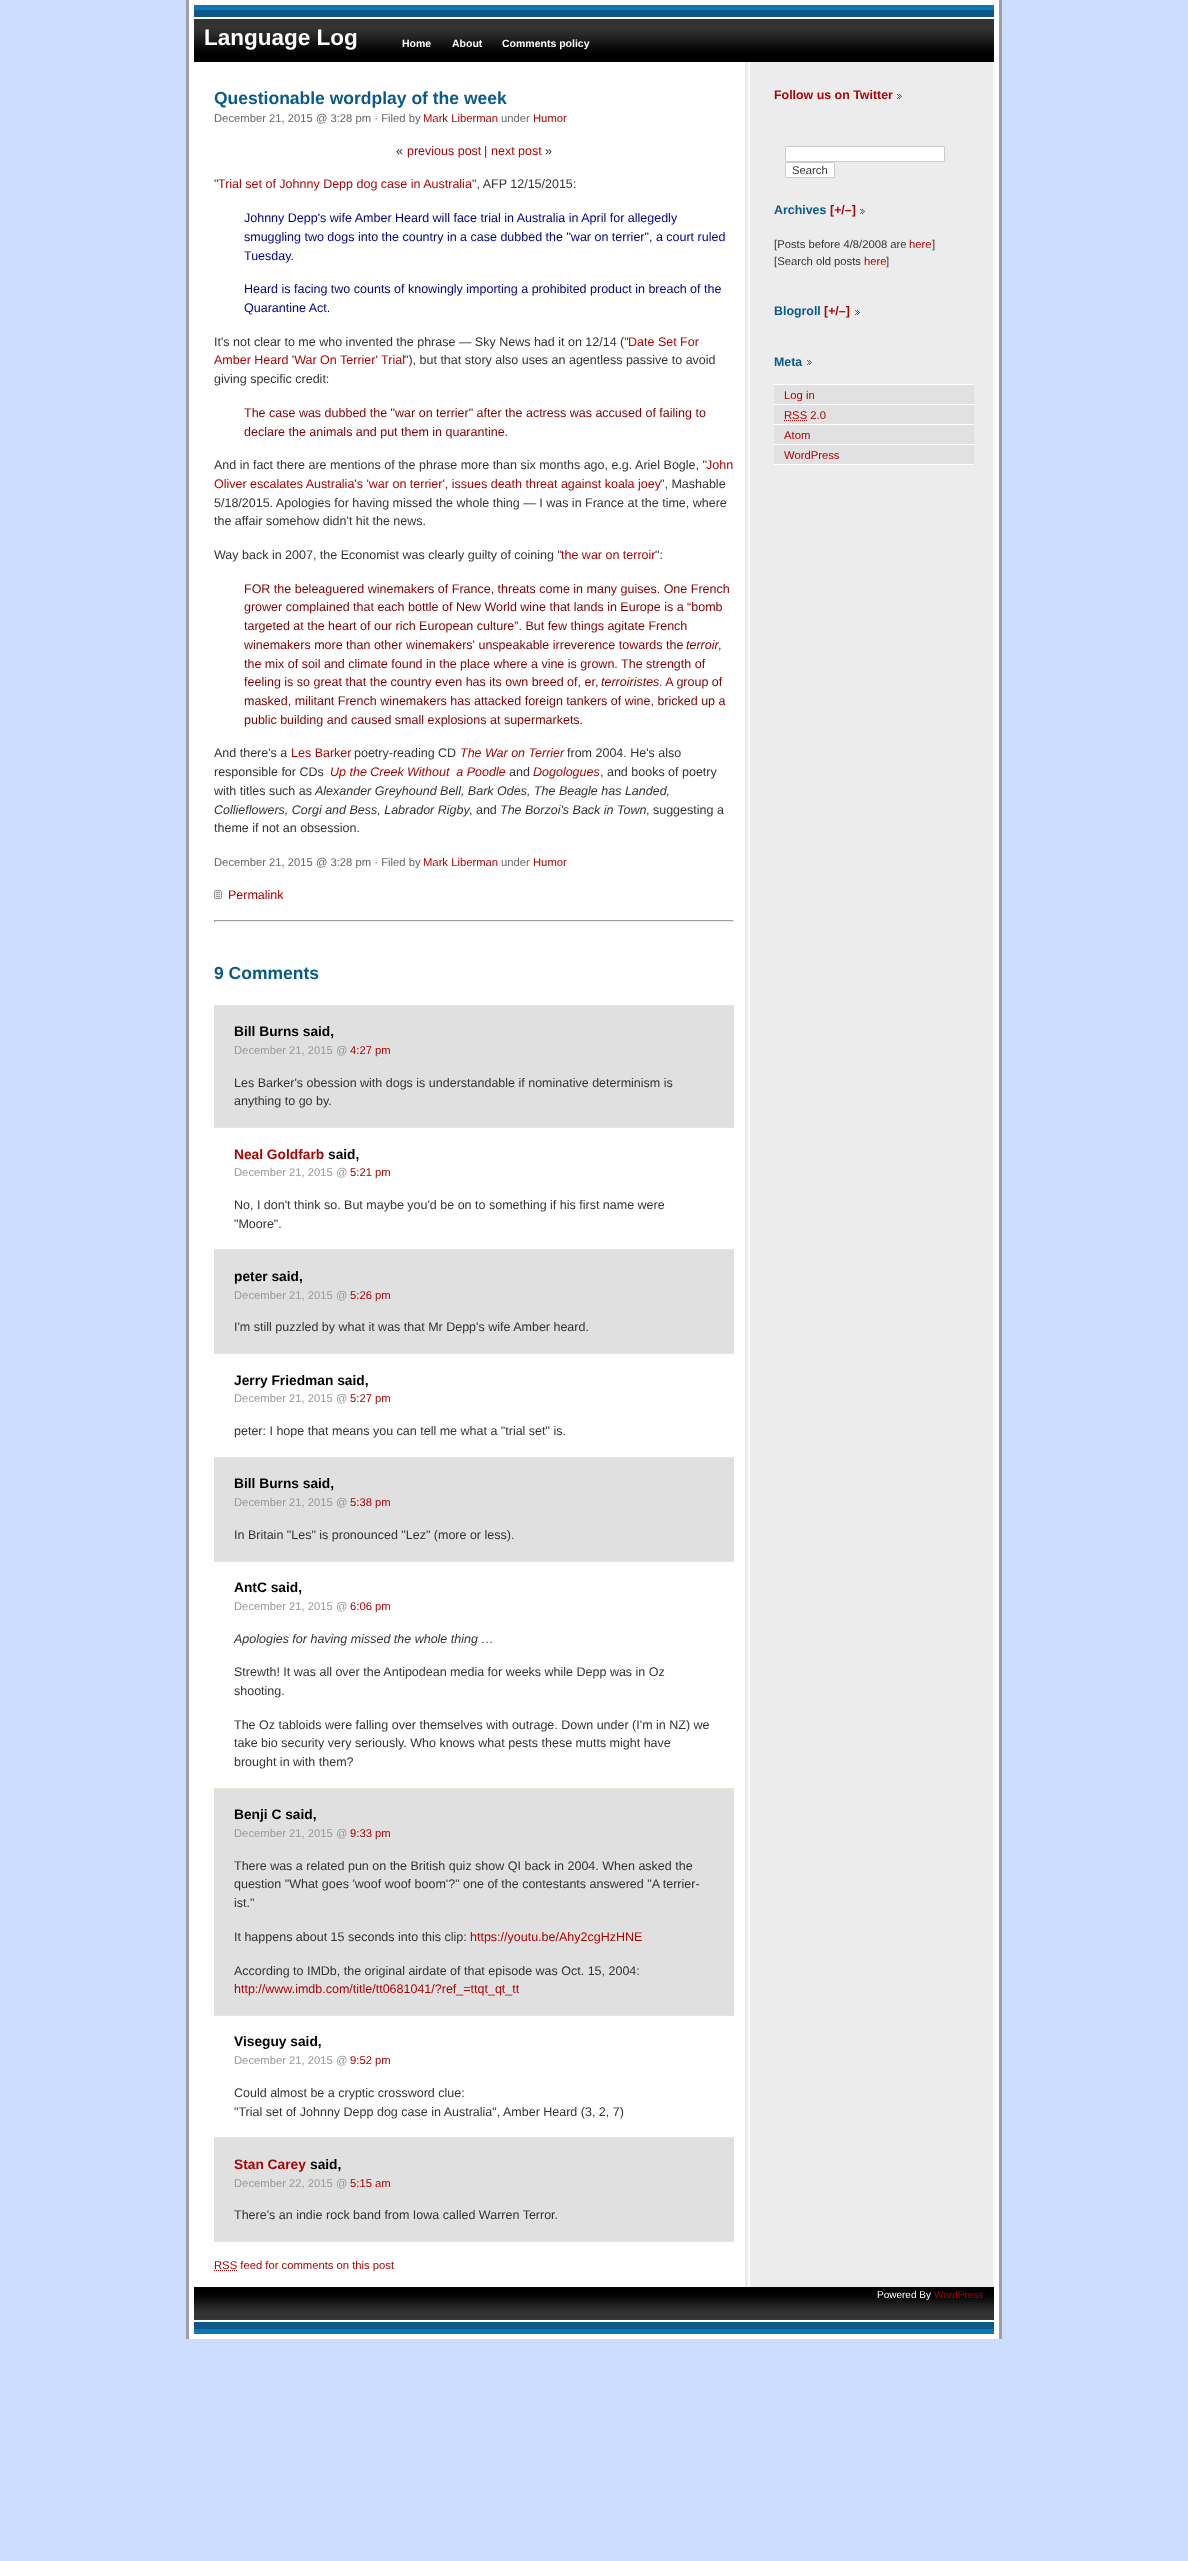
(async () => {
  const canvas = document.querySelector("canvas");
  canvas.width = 1188;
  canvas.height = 2561;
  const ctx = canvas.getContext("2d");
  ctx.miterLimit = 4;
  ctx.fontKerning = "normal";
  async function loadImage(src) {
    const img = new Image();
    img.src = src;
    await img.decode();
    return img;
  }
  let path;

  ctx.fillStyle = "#ccddff";
  ctx.fillRect(0, 0, 1188, 2561);
  ctx.fillStyle = "#ffffff";
  ctx.fillRect(189, 0, 810, 2339);
  ctx.drawImage(await loadImage("img/1.png"), 745, 62, 248, 2225);
  ctx.fillStyle = "#9f9f9f";
  ctx.fillRect(999, 0, 3, 2339);
  ctx.fillRect(186, 0, 3, 2339);
  ctx.drawImage(await loadImage("img/2.png"), 194, 5, 800, 57);
  ctx.drawImage(await loadImage("img/3.png"), 214, 890, 8, 9);
  for (const [x, y, w, h, color] of [
    [214, 920, 520, 1, "#9f9f9f"],
    [733, 920, 1, 2, "#eeeeee"],
    [214, 921, 520, 1, "#eeeeee"],
    [214, 920, 1, 2, "#9f9f9f"],
    [214, 2241, 520, 1, "#e8e7d0"],
    [214, 1006, 520, 121, "#e0e0e0"],
    [214, 1005, 520, 1, "#e8e7d0"],
    [214, 1127, 520, 1, "#e8e7d0"],
    [214, 1250, 520, 103, "#e0e0e0"],
    [214, 1249, 520, 1, "#e8e7d0"],
    [214, 1353, 520, 1, "#e8e7d0"],
    [214, 1458, 520, 103, "#e0e0e0"],
    [214, 1457, 520, 1, "#e8e7d0"],
    [214, 1561, 520, 1, "#e8e7d0"],
    [214, 1789, 520, 226, "#e0e0e0"],
    [214, 1788, 520, 1, "#e8e7d0"],
    [214, 2015, 520, 1, "#e8e7d0"],
    [214, 2138, 520, 103, "#e0e0e0"],
    [214, 2137, 520, 1, "#e8e7d0"],
  ]) {
    ctx.fillStyle = color;
    ctx.fillRect(x, y, w, h);
  }
  path = new Path2D("M214 2270.5H237");
  ctx.strokeStyle = "#aa0505";
  ctx.setLineDash([1, 1]);
  ctx.stroke(path);
  ctx.drawImage(await loadImage("img/4.png"), 897, 94, 5, 5);
  ctx.fillStyle = "#ffffff";
  ctx.beginPath();
  ctx.rect(785.5, 146.5, 159, 15);
  ctx.fill();
  ctx.strokeStyle = "#cccccc";
  ctx.setLineDash([]);
  ctx.stroke();
  ctx.beginPath();
  ctx.rect(785.5, 162.5, 49, 15);
  ctx.fill();
  ctx.stroke();
  ctx.drawImage(await loadImage("img/4.png"), 860, 209, 5, 5);
  ctx.drawImage(await loadImage("img/4.png"), 855, 310, 5, 5);
  ctx.drawImage(await loadImage("img/4.png"), 807, 360, 5, 5);
  for (const [x, y, w, h, color] of [
    [774, 385, 200, 79, "#e1e1e1"],
    [774, 384, 200, 1, "#ffffff"],
    [774, 404, 200, 1, "#ffffff"],
    [774, 424, 200, 1, "#ffffff"],
  ]) {
    ctx.fillStyle = color;
    ctx.fillRect(x, y, w, h);
  }
  path = new Path2D("M784 420.5H807");
  ctx.strokeStyle = "#aa0505";
  ctx.setLineDash([1, 1]);
  ctx.stroke(path);
  ctx.fillRect(774, 444, 200, 1);
  ctx.fillRect(774, 464, 200, 1);
  ctx.drawImage(await loadImage("img/5.png"), 194, 2287, 800, 47);
  ctx.font = "bold 22.5px Liberation Sans";
  ctx.fillText("Language Log", 204, 45);
  ctx.font = "bold 10.5px Liberation Sans";
  for (const [text, x, y] of [
    ["Home", 402, 47],
    ["About", 452, 47],
    ["Comments policy", 502, 47],
  ]) {
    ctx.fillText(text, x, y);
  }
  ctx.font = "bold 17.5px Liberation Sans";
  ctx.fillStyle = "#0a5989";
  ctx.fillText("Questionable wordplay of the week", 214, 104);
  ctx.font = "11.25px Liberation Sans";
  ctx.fillStyle = "#666666";
  ctx.fillText("December 21, 2015 @ 3:28 pm · Filed by", 214, 122);
  ctx.fillStyle = "#aa0505";
  ctx.fillText("Mark Liberman", 423, 122);
  ctx.fillStyle = "#666666";
  ctx.fillText("under", 501, 122);
  ctx.fillStyle = "#aa0505";
  ctx.fillText("Humor", 533, 122);
  ctx.font = "12.5px Liberation Sans";
  ctx.fillStyle = "#333333";
  ctx.fillText("«", 396, 155);
  ctx.fillStyle = "#aa0505";
  ctx.fillText("previous post", 407, 155);
  ctx.fillStyle = "#333333";
  ctx.fillText("|", 484, 155);
  ctx.fillStyle = "#aa0505";
  ctx.fillText("next post", 491, 155);
  ctx.fillStyle = "#333333";
  ctx.fillText("»", 545, 155);
  ctx.fillText("\"", 214, 188);
  ctx.fillStyle = "#aa0505";
  ctx.fillText("Trial set of Johnny Depp dog case in Australia", 218, 188);
  ctx.fillStyle = "#333333";
  ctx.fillText("\", AFP 12/15/2015:", 472, 188);
  ctx.fillStyle = "#000080";
  for (const [text, x, y] of [
    ["Johnny Depp's wife Amber Heard will face trial in Australia in April for allegedly", 244, 222],
    ["smuggling two dogs into the country in a case dubbed the \"war on terrier\", a court ruled", 244, 241],
    ["Tuesday.", 244, 260],
    ["Heard is facing two counts of knowingly importing a prohibited product in breach of the", 244, 293],
    ["Quarantine Act.", 244, 312],
  ]) {
    ctx.fillText(text, x, y);
  }
  ctx.fillStyle = "#333333";
  ctx.fillText("It's not clear to me who invented the phrase — Sky News had it on 12/14 (\"", 214, 346);
  ctx.fillStyle = "#aa0505";
  ctx.fillText("Date Set For", 628, 346);
  ctx.fillText("Amber Heard 'War On Terrier' Trial", 214, 364);
  ctx.fillStyle = "#333333";
  ctx.fillText("\"), but that story also uses an agentless passive to avoid", 404, 364);
  ctx.fillText("giving specific credit:", 214, 383);
  ctx.fillStyle = "#800000";
  ctx.fillText("The case was dubbed the \"war on terrier\" after the actress was accused of failing to", 244, 417);
  ctx.fillText("declare the animals and put them in quarantine.", 244, 436);
  ctx.fillStyle = "#333333";
  ctx.fillText("And in fact there are mentions of the phrase more than six months ago, e.g. Ariel Bogle, \"", 214, 469);
  ctx.fillStyle = "#aa0505";
  ctx.fillText("John", 706, 469);
  ctx.fillText("Oliver escalates Australia's 'war on terrier', issues death threat against koala joey", 214, 488);
  ctx.fillStyle = "#333333";
  for (const [text, x, y] of [
    ["\", Mashable", 660, 488],
    ["5/18/2015. Apologies for having missed the whole thing — I was in France at the time, where", 214, 507],
    ["the affair somehow didn't hit the news.", 214, 525],
    ["Way back in 2007, the Economist was clearly guilty of coining \"", 214, 559],
  ]) {
    ctx.fillText(text, x, y);
  }
  ctx.fillStyle = "#aa0505";
  ctx.fillText("the war on terroir", 561, 559);
  ctx.fillStyle = "#333333";
  ctx.fillText("\":", 655, 559);
  ctx.fillStyle = "#800000";
  for (const [text, x, y] of [
    ["FOR the beleaguered winemakers of France, threats come in many guises. One French", 244, 593],
    ["grower complained that each bottle of New World wine that lands in Europe is a “bomb", 244, 611],
    ["targeted at the heart of our rich European culture”. But few things agitate French", 244, 630],
    ["winemakers more than other winemakers' unspeakable irreverence towards the", 244, 649],
  ]) {
    ctx.fillText(text, x, y);
  }
  ctx.font = "italic 12.5px Liberation Sans";
  ctx.fillText("terroir", 686, 649);
  ctx.font = "12.5px Liberation Sans";
  for (const [text, x, y] of [
    [",", 718, 649],
    ["the mix of soil and climate found in the place where a vine is grown. The strength of", 244, 668],
    ["feeling is so great that the country even has its own breed of, er,", 244, 686],
  ]) {
    ctx.fillText(text, x, y);
  }
  ctx.font = "italic 12.5px Liberation Sans";
  ctx.fillText("terroiristes", 601, 686);
  ctx.font = "12.5px Liberation Sans";
  for (const [text, x, y] of [
    [". A group of", 659, 686],
    ["masked, militant French winemakers has attacked foreign tankers of wine, bricked up a", 244, 705],
    ["public building and caused small explosions at supermarkets.", 244, 724],
  ]) {
    ctx.fillText(text, x, y);
  }
  ctx.fillStyle = "#333333";
  ctx.fillText("And there's a", 214, 757);
  ctx.fillStyle = "#aa0505";
  ctx.fillText("Les Barker", 291, 757);
  ctx.fillStyle = "#333333";
  ctx.fillText("poetry-reading CD", 354, 757);
  ctx.font = "italic 12.5px Liberation Sans";
  ctx.fillStyle = "#aa0505";
  ctx.fillText("The War on Terrier", 460, 757);
  ctx.font = "12.5px Liberation Sans";
  ctx.fillStyle = "#333333";
  ctx.fillText("from 2004. He's also", 567, 757);
  ctx.fillText("responsible for CDs", 214, 776);
  ctx.font = "italic 12.5px Liberation Sans";
  ctx.fillStyle = "#aa0505";
  ctx.fillText("Up the Creek Without  a Poodle", 330, 776);
  ctx.font = "12.5px Liberation Sans";
  ctx.fillStyle = "#333333";
  ctx.fillText("and", 509, 776);
  ctx.font = "italic 12.5px Liberation Sans";
  ctx.fillStyle = "#aa0505";
  ctx.fillText("Dogologues", 533, 776);
  ctx.font = "12.5px Liberation Sans";
  ctx.fillStyle = "#333333";
  ctx.fillText(", and books of poetry", 600, 776);
  ctx.fillText("with titles such as", 214, 795);
  ctx.font = "italic 12.5px Liberation Sans";
  ctx.fillText("Alexander Greyhound Bell, Bark Odes, The Beagle has Landed,", 315, 795);
  ctx.fillText("Collieflowers, Corgi and Bess, Labrador Rigby", 214, 814);
  ctx.font = "12.5px Liberation Sans";
  ctx.fillText(", and", 469, 814);
  ctx.font = "italic 12.5px Liberation Sans";
  ctx.fillText("The Borzoi's Back in Town", 500, 814);
  ctx.font = "12.5px Liberation Sans";
  ctx.fillText(", suggesting a", 646, 814);
  ctx.fillText("theme if not an obsession.", 214, 832);
  ctx.font = "11.25px Liberation Sans";
  ctx.fillStyle = "#666666";
  ctx.fillText("December 21, 2015 @ 3:28 pm · Filed by", 214, 866);
  ctx.fillStyle = "#aa0505";
  ctx.fillText("Mark Liberman", 423, 866);
  ctx.fillStyle = "#666666";
  ctx.fillText("under", 501, 866);
  ctx.fillStyle = "#aa0505";
  ctx.fillText("Humor", 533, 866);
  ctx.font = "12.5px Liberation Sans";
  ctx.fillText("Permalink", 228, 899);
  ctx.font = "bold 17.5px Liberation Sans";
  ctx.fillStyle = "#0a5989";
  ctx.fillText("9 Comments", 214, 979);
  ctx.font = "bold 13.75px Liberation Sans";
  ctx.fillStyle = "#000000";
  ctx.fillText("Bill Burns said,", 234, 1036);
  ctx.font = "11.25px Liberation Sans";
  ctx.fillStyle = "#999999";
  ctx.fillText("December 21, 2015 @", 234, 1054);
  ctx.fillStyle = "#aa0505";
  ctx.fillText("4:27 pm", 350, 1054);
  ctx.font = "12.5px Liberation Sans";
  ctx.fillStyle = "#333333";
  ctx.fillText("Les Barker's obession with dogs is understandable if nominative determinism is", 234, 1087);
  ctx.fillText("anything to go by.", 234, 1105);
  ctx.font = "bold 13.75px Liberation Sans";
  ctx.fillStyle = "#aa0505";
  ctx.fillText("Neal Goldfarb", 234, 1159);
  ctx.fillStyle = "#000000";
  ctx.fillText("said,", 328, 1159);
  ctx.font = "11.25px Liberation Sans";
  ctx.fillStyle = "#999999";
  ctx.fillText("December 21, 2015 @", 234, 1176);
  ctx.fillStyle = "#aa0505";
  ctx.fillText("5:21 pm", 350, 1176);
  ctx.font = "12.5px Liberation Sans";
  ctx.fillStyle = "#333333";
  ctx.fillText("No, I don't think so. But maybe you'd be on to something if his first name were", 234, 1209);
  ctx.fillText("\"Moore\".", 234, 1228);
  ctx.font = "bold 13.75px Liberation Sans";
  ctx.fillStyle = "#000000";
  ctx.fillText("peter said,", 234, 1281);
  ctx.font = "11.25px Liberation Sans";
  ctx.fillStyle = "#999999";
  ctx.fillText("December 21, 2015 @", 234, 1299);
  ctx.fillStyle = "#aa0505";
  ctx.fillText("5:26 pm", 350, 1299);
  ctx.font = "12.5px Liberation Sans";
  ctx.fillStyle = "#333333";
  ctx.fillText("I'm still puzzled by what it was that Mr Depp's wife Amber heard.", 234, 1331);
  ctx.font = "bold 13.75px Liberation Sans";
  ctx.fillStyle = "#000000";
  ctx.fillText("Jerry Friedman said,", 234, 1385);
  ctx.font = "11.25px Liberation Sans";
  ctx.fillStyle = "#999999";
  ctx.fillText("December 21, 2015 @", 234, 1402);
  ctx.fillStyle = "#aa0505";
  ctx.fillText("5:27 pm", 350, 1402);
  ctx.font = "12.5px Liberation Sans";
  ctx.fillStyle = "#333333";
  ctx.fillText("peter: I hope that means you can tell me what a \"trial set\" is.", 234, 1435);
  ctx.font = "bold 13.75px Liberation Sans";
  ctx.fillStyle = "#000000";
  ctx.fillText("Bill Burns said,", 234, 1488);
  ctx.font = "11.25px Liberation Sans";
  ctx.fillStyle = "#999999";
  ctx.fillText("December 21, 2015 @", 234, 1506);
  ctx.fillStyle = "#aa0505";
  ctx.fillText("5:38 pm", 350, 1506);
  ctx.font = "12.5px Liberation Sans";
  ctx.fillStyle = "#333333";
  ctx.fillText("In Britain \"Les\" is pronounced \"Lez\" (more or less).", 234, 1539);
  ctx.font = "bold 13.75px Liberation Sans";
  ctx.fillStyle = "#000000";
  ctx.fillText("AntC said,", 234, 1592);
  ctx.font = "11.25px Liberation Sans";
  ctx.fillStyle = "#999999";
  ctx.fillText("December 21, 2015 @", 234, 1610);
  ctx.fillStyle = "#aa0505";
  ctx.fillText("6:06 pm", 350, 1610);
  ctx.font = "italic 12.5px Liberation Sans";
  ctx.fillStyle = "#333333";
  ctx.fillText("Apologies for having missed the whole thing …", 234, 1643);
  ctx.font = "12.5px Liberation Sans";
  for (const [text, x, y] of [
    ["Strewth! It was all over the Antipodean media for weeks while Depp was in Oz", 234, 1676],
    ["shooting.", 234, 1695],
    ["The Oz tabloids were falling over themselves with outrage. Down under (I'm in NZ) we", 234, 1729],
    ["take bio security very seriously. Who knows what pests these mutts might have", 234, 1747],
    ["brought in with them?", 234, 1766],
  ]) {
    ctx.fillText(text, x, y);
  }
  ctx.font = "bold 13.75px Liberation Sans";
  ctx.fillStyle = "#000000";
  ctx.fillText("Benji C said,", 234, 1819);
  ctx.font = "11.25px Liberation Sans";
  ctx.fillStyle = "#999999";
  ctx.fillText("December 21, 2015 @", 234, 1837);
  ctx.fillStyle = "#aa0505";
  ctx.fillText("9:33 pm", 350, 1837);
  ctx.font = "12.5px Liberation Sans";
  ctx.fillStyle = "#333333";
  for (const [text, x, y] of [
    ["There was a related pun on the British quiz show QI back in 2004. When asked the", 234, 1870],
    ["question \"What goes 'woof woof boom'?\" one of the contestants answered \"A terrier-", 234, 1888],
    ["ist.\"", 234, 1907],
    ["It happens about 15 seconds into this clip:", 234, 1941],
  ]) {
    ctx.fillText(text, x, y);
  }
  ctx.fillStyle = "#aa0505";
  ctx.fillText("https://youtu.be/Ahy2cgHzHNE", 470, 1941);
  ctx.fillStyle = "#333333";
  ctx.fillText("According to IMDb, the original airdate of that episode was Oct. 15, 2004:", 234, 1975);
  ctx.fillStyle = "#aa0505";
  ctx.fillText("http://www.imdb.com/title/tt0681041/?ref_=ttqt_qt_tt", 234, 1993);
  ctx.font = "bold 13.75px Liberation Sans";
  ctx.fillStyle = "#000000";
  ctx.fillText("Viseguy said,", 234, 2046);
  ctx.font = "11.25px Liberation Sans";
  ctx.fillStyle = "#999999";
  ctx.fillText("December 21, 2015 @", 234, 2064);
  ctx.fillStyle = "#aa0505";
  ctx.fillText("9:52 pm", 350, 2064);
  ctx.font = "12.5px Liberation Sans";
  ctx.fillStyle = "#333333";
  ctx.fillText("Could almost be a cryptic crossword clue:", 234, 2097);
  ctx.fillText("\"Trial set of Johnny Depp dog case in Australia\", Amber Heard (3, 2, 7)", 234, 2116);
  ctx.font = "bold 13.75px Liberation Sans";
  ctx.fillStyle = "#aa0505";
  ctx.fillText("Stan Carey", 234, 2169);
  ctx.fillStyle = "#000000";
  ctx.fillText("said,", 310, 2169);
  ctx.font = "11.25px Liberation Sans";
  ctx.fillStyle = "#999999";
  ctx.fillText("December 22, 2015 @", 234, 2187);
  ctx.fillStyle = "#aa0505";
  ctx.fillText("5:15 am", 350, 2187);
  ctx.font = "12.5px Liberation Sans";
  ctx.fillStyle = "#333333";
  ctx.fillText("There's an indie rock band from Iowa called Warren Terror.", 234, 2219);
  ctx.font = "11.25px Liberation Sans";
  ctx.fillStyle = "#aa0505";
  ctx.fillText("RSS feed for comments on this post", 214, 2269);
  ctx.font = "bold 12.4px Liberation Sans";
  ctx.fillText("Follow us on Twitter", 774, 99);
  ctx.font = "11.25px Liberation Sans";
  ctx.fillStyle = "#333333";
  ctx.fillText("Search", 792, 174);
  ctx.font = "bold 12.4px Liberation Sans";
  ctx.fillStyle = "#0a5989";
  ctx.fillText("Archives", 774, 214);
  ctx.fillStyle = "#aa0505";
  ctx.fillText("[+/–]", 830, 214);
  ctx.font = "11.25px Liberation Sans";
  ctx.fillStyle = "#333333";
  ctx.fillText("[Posts before 4/8/2008 are", 774, 248);
  ctx.fillStyle = "#aa0505";
  ctx.fillText("here", 909, 248);
  ctx.fillStyle = "#333333";
  ctx.fillText("]", 932, 248);
  ctx.fillText("[Search old posts", 774, 265);
  ctx.fillStyle = "#aa0505";
  ctx.fillText("here", 864, 265);
  ctx.fillStyle = "#333333";
  ctx.fillText("]", 886, 265);
  ctx.font = "bold 12.4px Liberation Sans";
  ctx.fillStyle = "#0a5989";
  ctx.fillText("Blogroll", 774, 315);
  ctx.fillStyle = "#aa0505";
  ctx.fillText("[+/–]", 824, 315);
  ctx.fillStyle = "#0a5989";
  ctx.fillText("Meta", 774, 366);
  ctx.font = "11.25px Liberation Sans";
  ctx.fillStyle = "#aa0505";
  for (const [text, x, y] of [
    ["Log in", 784, 399],
    ["RSS 2.0", 784, 419],
    ["Atom", 784, 439],
    ["WordPress", 784, 459],
  ]) {
    ctx.fillText(text, x, y);
  }
  ctx.font = "10px Liberation Sans";
  ctx.fillStyle = "#ffffff";
  ctx.fillText("Powered By", 877, 2298);
  ctx.fillStyle = "#aa0505";
  ctx.fillText("WordPress", 934, 2298);
})();
